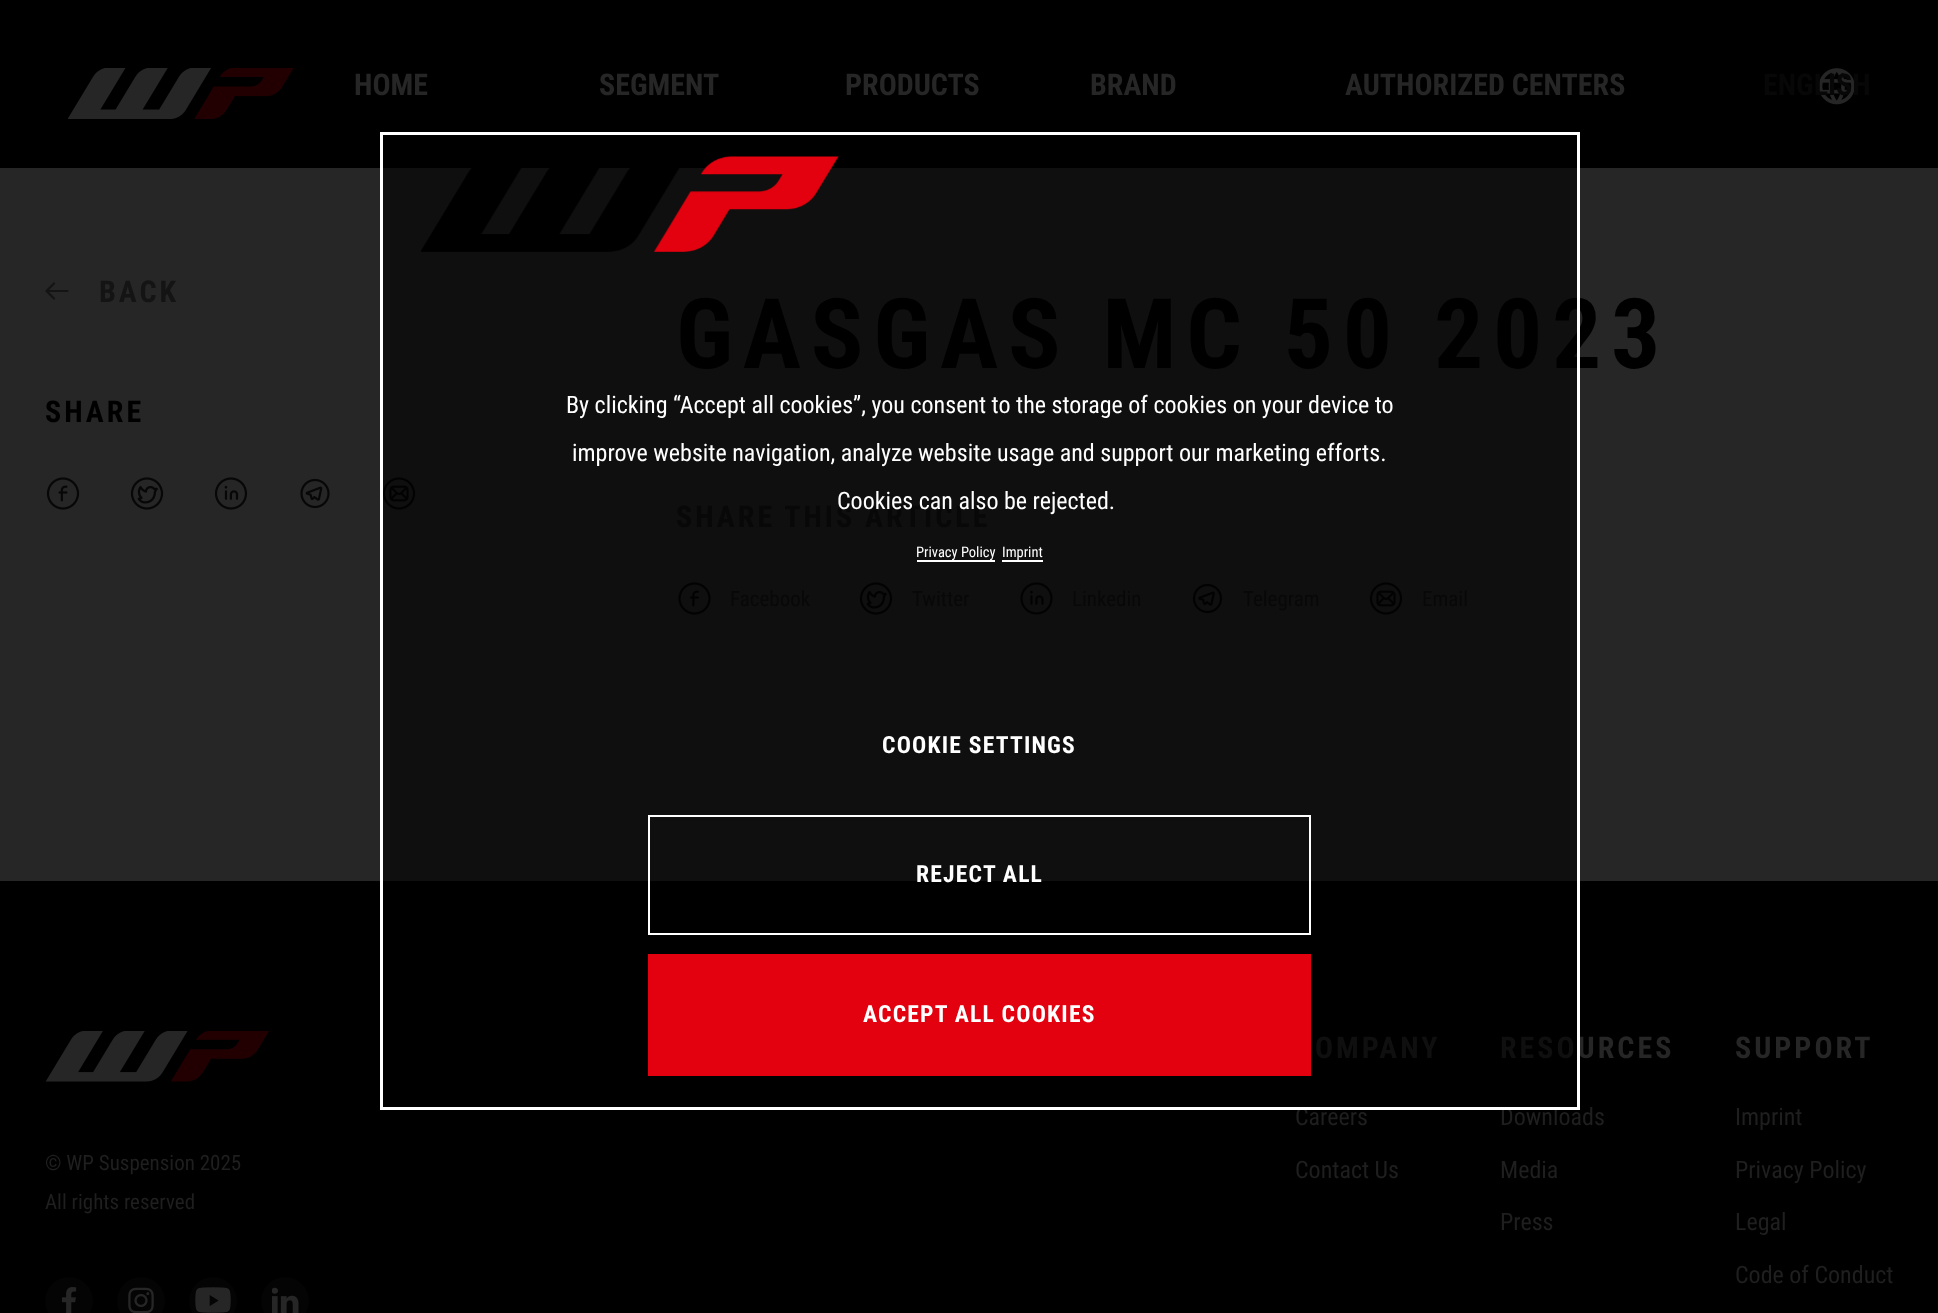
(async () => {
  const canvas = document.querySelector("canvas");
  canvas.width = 1938;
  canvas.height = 1313;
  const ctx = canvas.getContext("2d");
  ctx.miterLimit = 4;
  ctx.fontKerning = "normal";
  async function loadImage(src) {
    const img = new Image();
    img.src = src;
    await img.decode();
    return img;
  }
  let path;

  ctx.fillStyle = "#262626";
  ctx.fillRect(0, 0, 1938, 1313);
  ctx.fillStyle = "#000000";
  ctx.fillRect(0, 0, 1938, 168);
  ctx.drawImage(await loadImage("img/1.png"), 68, 68, 226, 51);
  ctx.drawImage(await loadImage("img/2.png"), 1818, 68, 37, 37);
  path = new Path2D("M46.5 291H67.5M54 283.5L46.5 291M54 298.5L46.5 291");
  ctx.strokeStyle = "#141414";
  ctx.lineWidth = 2.2;
  ctx.lineCap = "round";
  ctx.lineJoin = "round";
  ctx.stroke(path);
  ctx.drawImage(await loadImage("img/3.png"), 46, 477, 34, 33);
  ctx.drawImage(await loadImage("img/4.png"), 130, 477, 34, 33);
  ctx.drawImage(await loadImage("img/5.png"), 214, 477, 34, 33);
  ctx.drawImage(await loadImage("img/6.png"), 300, 478, 30, 31);
  ctx.drawImage(await loadImage("img/7.png"), 383, 477, 33, 33);
  ctx.drawImage(await loadImage("img/8.png"), 678, 582, 33, 33);
  ctx.drawImage(await loadImage("img/4.png"), 859, 582, 34, 33);
  ctx.drawImage(await loadImage("img/9.png"), 1020, 582, 33, 33);
  ctx.drawImage(await loadImage("img/10.png"), 1192, 583, 31, 31);
  ctx.drawImage(await loadImage("img/11.png"), 1369, 582, 34, 33);
  ctx.fillRect(0, 881, 1938, 432);
  ctx.drawImage(await loadImage("img/13.png"), 45, 1031, 224, 51);
  ctx.fillStyle = "#040404";
  ctx.beginPath();
  ctx.arc(69, 1301, 24, 0, Math.PI * 2);
  ctx.fill();
  ctx.drawImage(await loadImage("img/14.png"), 62, 1287, 15, 26);
  ctx.beginPath();
  ctx.arc(141, 1301, 24, 0, Math.PI * 2);
  ctx.fill();
  ctx.drawImage(await loadImage("img/15.png"), 128, 1287, 26, 26);
  ctx.beginPath();
  ctx.arc(213, 1301, 24, 0, Math.PI * 2);
  ctx.fill();
  ctx.drawImage(await loadImage("img/16.png"), 195, 1287, 36, 26);
  ctx.beginPath();
  ctx.arc(285, 1301, 24, 0, Math.PI * 2);
  ctx.fill();
  ctx.drawImage(await loadImage("img/17.png"), 272, 1287, 27, 26);
  ctx.font = "bold 30px Roboto Condensed";
  ctx.fillStyle = "#262626";
  for (const [text, x, y] of [
    ["HOME", 354, 95],
    ["SEGMENT", 599, 95],
    ["PRODUCTS", 845, 95],
    ["BRAND", 1090, 95],
    ["AUTHORIZED CENTERS", 1345, 95],
  ]) {
    ctx.fillText(text, x, y);
  }
  ctx.fillStyle = "#070707";
  ctx.fillText("ENGLISH", 1763, 95);
  ctx.letterSpacing = "3px";
  ctx.fillStyle = "#141414";
  ctx.fillText("BACK", 99, 302);
  ctx.letterSpacing = "9.75px";
  ctx.font = "bold 97.5px Roboto Condensed";
  ctx.fillStyle = "#000000";
  ctx.fillText("GASGAS MC 50 2023", 676, 368);
  ctx.letterSpacing = "3px";
  ctx.font = "bold 30px Roboto Condensed";
  ctx.fillText("SHARE", 45, 422);
  ctx.fillStyle = "#141414";
  ctx.fillText("SHARE THIS ARTICLE", 676, 527);
  ctx.letterSpacing = "0px";
  ctx.font = "21px Roboto Condensed";
  for (const [text, x, y] of [
    ["Facebook", 730, 606],
    ["Twitter", 912, 606],
    ["Linkedin", 1072, 606],
    ["Telegram", 1243, 606],
    ["Email", 1422, 606],
  ]) {
    ctx.fillText(text, x, y);
  }
  ctx.fillStyle = "#1f1f1f";
  ctx.fillText("© WP Suspension 2025", 45, 1170);
  ctx.fillText("All rights reserved", 45, 1209);
  ctx.letterSpacing = "3px";
  ctx.font = "bold 30px Roboto Condensed";
  ctx.fillStyle = "#262626";
  ctx.fillText("OMPANY", 1315, 1058);
  ctx.letterSpacing = "0px";
  ctx.font = "24px Roboto Condensed";
  ctx.fillStyle = "#1f1f1f";
  ctx.fillText("Careers", 1295, 1125);
  ctx.fillText("Contact Us", 1295, 1178);
  ctx.letterSpacing = "3px";
  ctx.font = "bold 30px Roboto Condensed";
  ctx.fillStyle = "#262626";
  ctx.fillText("RESOURCES", 1500, 1058);
  ctx.fillStyle = "rgba(0, 0, 0, 0.6)";
  ctx.fillRect(383, 168, 1194, 891);
  ctx.letterSpacing = "0px";
  ctx.font = "24px Roboto Condensed";
  ctx.fillStyle = "#1f1f1f";
  ctx.fillText("Downloads", 1500, 1125);
  ctx.strokeStyle = "#ffffff";
  ctx.lineWidth = 3;
  ctx.lineJoin = "miter";
  ctx.strokeRect(381.5, 133.5, 1197, 975);
  ctx.fillStyle = "#e3000f";
  ctx.fillRect(648, 954, 663, 122);
  ctx.letterSpacing = "1.2px";
  ctx.font = "bold 23.6px Roboto Condensed";
  ctx.fillStyle = "#ffffff";
  ctx.fillText("ACCEPT ALL COOKIES", 863, 1022);
  ctx.lineWidth = 2;
  ctx.strokeRect(649, 816, 661, 118);
  ctx.fillText("REJECT ALL", 916, 882);
  ctx.fillText("COOKIE SETTINGS", 882, 753);
  ctx.drawImage(await loadImage("img/12.png"), 421, 156, 418, 96);
  ctx.letterSpacing = "0px";
  ctx.font = "14.5px Roboto Condensed";
  ctx.fillText("Imprint", 1002, 557);
  ctx.fillRect(1002, 560, 41, 2);
  ctx.fillRect(917, 560, 78, 2);
  ctx.fillText("Privacy Policy", 916, 557);
  ctx.font = "24px Roboto Condensed";
  for (const [text, x, y] of [
    ["Cookies can also be rejected.", 837, 509],
    ["improve website navigation, analyze website usage and support our marketing efforts.", 572, 461],
    ["By clicking “Accept all cookies”, you consent to the storage of cookies on your device to", 566, 413],
  ]) {
    ctx.fillText(text, x, y);
  }
  ctx.fillStyle = "#1f1f1f";
  ctx.fillText("Media", 1500, 1178);
  ctx.fillText("Press", 1500, 1230);
  ctx.letterSpacing = "3px";
  ctx.font = "bold 30px Roboto Condensed";
  ctx.fillStyle = "#262626";
  ctx.fillText("SUPPORT", 1735, 1058);
  ctx.letterSpacing = "0px";
  ctx.font = "24px Roboto Condensed";
  ctx.fillStyle = "#1f1f1f";
  for (const [text, x, y] of [
    ["Imprint", 1735, 1125],
    ["Privacy Policy", 1735, 1178],
    ["Legal", 1735, 1230],
    ["Code of Conduct", 1735, 1283],
  ]) {
    ctx.fillText(text, x, y);
  }
})();
